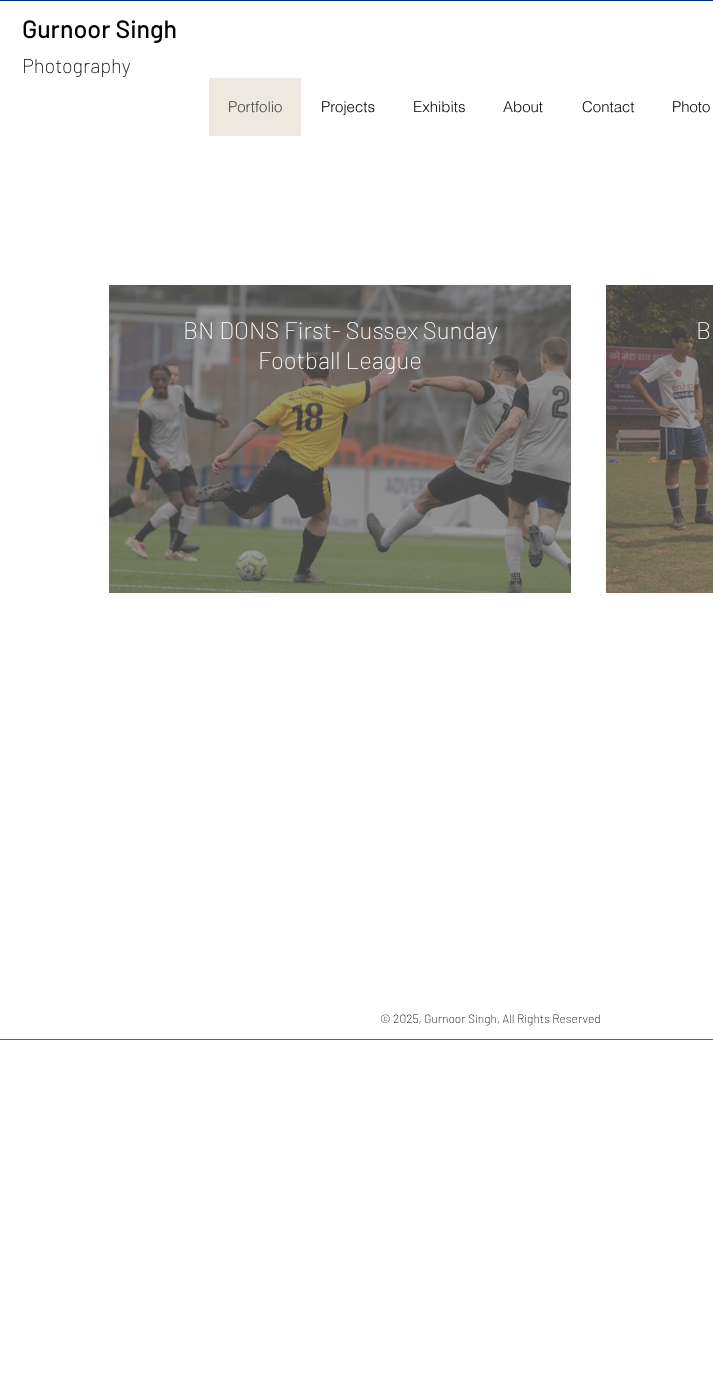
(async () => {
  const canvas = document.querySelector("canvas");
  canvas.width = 713;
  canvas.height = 1386;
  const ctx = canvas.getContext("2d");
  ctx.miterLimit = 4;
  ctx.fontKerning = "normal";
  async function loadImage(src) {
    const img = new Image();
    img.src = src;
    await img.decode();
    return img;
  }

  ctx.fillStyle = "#ffffff";
  ctx.fillRect(0, 0, 713, 1386);
  ctx.fillStyle = "#002a7e";
  ctx.fillRect(0, 0, 713, 1);
  ctx.fillStyle = "#ede9e1";
  ctx.fillRect(209, 78, 92, 58);
  ctx.drawImage(await loadImage("img/1.png"), 109, 285, 462, 308);
  ctx.drawImage(await loadImage("img/2.png"), 606, 285, 107, 308);
  ctx.fillStyle = "#616161";
  ctx.fillRect(0, 1039, 713, 1);
  ctx.font = "500 25px Barlow";
  ctx.fillStyle = "#000000";
  ctx.fillText("Gurnoor Singh", 22, 38);
  ctx.font = "200 20px Barlow";
  ctx.fillText("Photography", 22, 73);
  ctx.font = "300 15px helvetica";
  ctx.fillStyle = "#444444";
  ctx.fillText("Portfolio", 228, 112);
  ctx.fillStyle = "#000000";
  for (const [text, x, y] of [
    ["Projects", 321, 112],
    ["Exhibits", 413, 112],
    ["About", 503, 112],
    ["Contact", 582, 112],
    ["Photo", 672, 112],
  ]) {
    ctx.fillText(text, x, y);
  }
  ctx.font = "200 24px Barlow";
  ctx.fillStyle = "#ffffff";
  for (const [text, x, y] of [
    ["BN DONS First- Sussex Sunday", 183, 339],
    ["Football League", 258, 369],
    ["B", 696, 339],
  ]) {
    ctx.fillText(text, x, y);
  }
  ctx.font = "200 12px Barlow";
  ctx.fillStyle = "#000000";
  ctx.fillText("© 2025, Gurnoor Singh, All Rights Reserved", 380, 1023);
})();
